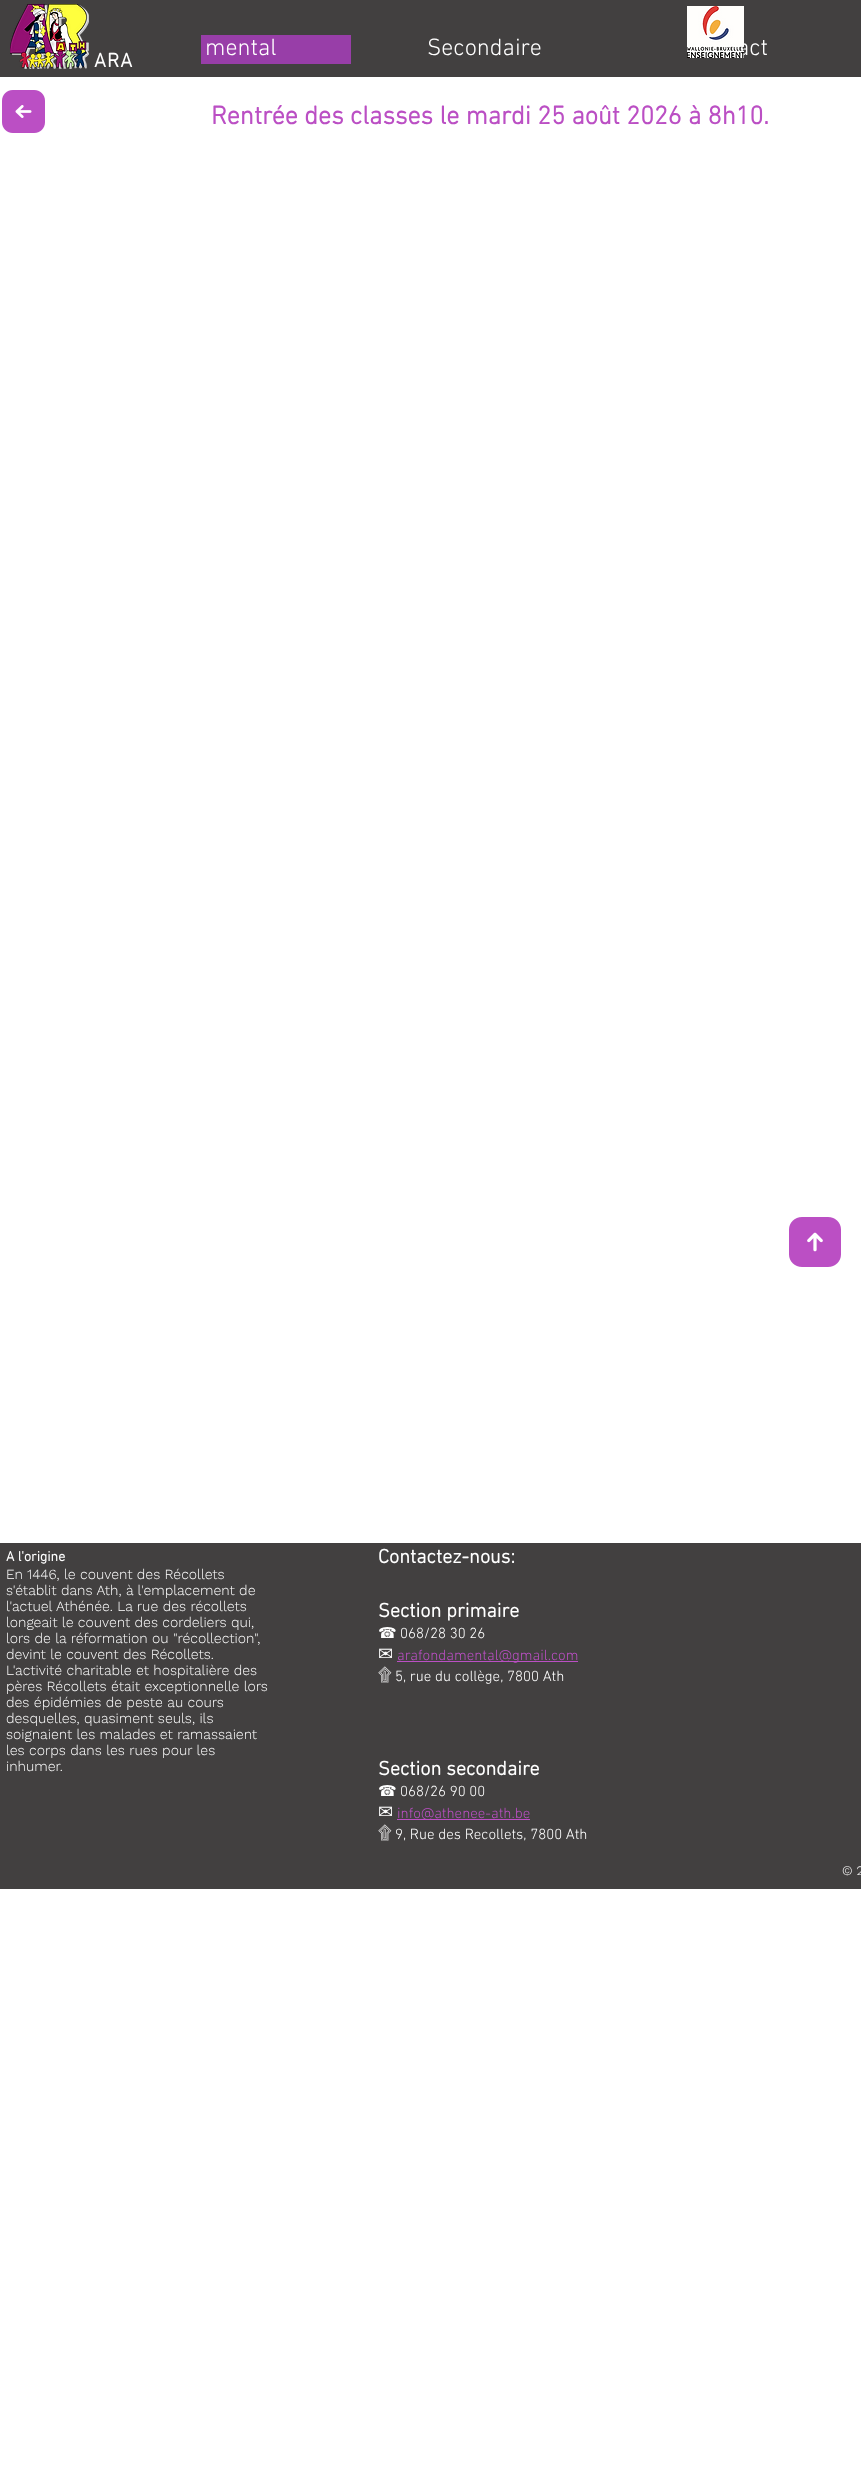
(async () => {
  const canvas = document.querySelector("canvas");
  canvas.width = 861;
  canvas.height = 2484;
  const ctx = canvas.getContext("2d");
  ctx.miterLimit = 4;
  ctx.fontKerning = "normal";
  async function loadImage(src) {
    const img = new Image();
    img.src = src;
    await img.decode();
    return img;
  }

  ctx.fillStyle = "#ffffff";
  ctx.fillRect(0, 0, 861, 2484);
  ctx.fillStyle = "#424040";
  ctx.fillRect(0, 0, 861, 77);
  ctx.fillStyle = "#983ea8";
  ctx.fillRect(201, 35, 150, 29);
  ctx.drawImage(await loadImage("img/2.png"), 10, 4, 79, 65);
  ctx.drawImage(await loadImage("img/3.png"), 2, 90, 43, 43);
  ctx.drawImage(await loadImage("img/4.png"), 789, 1217, 52, 50);
  for (const [x, y, w, h, color] of [
    [0, 1543, 861, 346, "#424040"],
    [397, 1661, 181, 1, "#bb4fc4"],
    [397, 1819, 133, 1, "#bb4fc4"],
  ]) {
    ctx.fillStyle = color;
    ctx.fillRect(x, y, w, h);
  }
  ctx.font = "300 24px 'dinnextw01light'";
  ctx.fillStyle = "#ffffff";
  for (const [text, x, y] of [
    ["mental", 205, 55],
    ["Secondaire", 427, 55],
    ["act", 737, 55],
  ]) {
    ctx.fillText(text, x, y);
  }
  ctx.drawImage(await loadImage("img/1.png"), 687, 6, 57, 52);
  ctx.letterSpacing = "1px";
  ctx.font = "bold 20px 'dinnextw01light'";
  ctx.fillText("ARA", 94, 67);
  ctx.letterSpacing = "0px";
  ctx.font = "bold 26px 'dinnextw01light'";
  ctx.fillStyle = "#bb4fc4";
  ctx.fillText("Rentrée des classes le mardi 25 août 2026 à 8h10.", 211, 124);
  ctx.font = "bold 14px 'dinnextw01light'";
  ctx.fillStyle = "#ffffff";
  ctx.fillText("A l'origine", 6, 1561);
  ctx.font = "300 14px Work Sans";
  for (const [text, x, y] of [
    ["En 1446, le couvent des Récollets", 6, 1579],
    ["s'établit dans Ath, à l'emplacement de", 6, 1595],
    ["l'actuel Athénée. La rue des récollets", 6, 1611],
    ["longeait le couvent des cordeliers qui,", 6, 1627],
    ["lors de la réformation ou \"récollection\",", 6, 1643],
    ["devint le couvent des Récollets.", 6, 1659],
    ["L'activité charitable et hospitalière des", 6, 1675],
    ["pères Récollets était exceptionnelle lors", 6, 1691],
    ["des épidémies de peste au cours", 6, 1707],
    ["desquelles, quasiment seuls, ils", 6, 1723],
    ["soignaient les malades et ramassaient", 6, 1739],
    ["les corps dans les rues pour les", 6, 1755],
    ["inhumer.", 6, 1771],
  ]) {
    ctx.fillText(text, x, y);
  }
  ctx.font = "bold 20px 'dinnextw01light'";
  ctx.fillText("Contactez-nous:", 378, 1563);
  ctx.fillText("Section primaire", 378, 1617);
  ctx.font = "15px DejaVu Sans";
  ctx.fillText("☎", 378, 1638);
  ctx.font = "300 15px 'dinnextw01light'";
  ctx.fillText("068/28 30 26", 400, 1638);
  ctx.font = "18px DejaVu Sans";
  ctx.fillText("✉", 378, 1660);
  ctx.font = "300 15px 'dinnextw01light'";
  ctx.fillStyle = "#bb4fc4";
  ctx.fillText("arafondamental@gmail.com", 397, 1660);
  ctx.font = "18px FreeSerif";
  ctx.fillStyle = "#ffffff";
  ctx.fillText("۩", 378, 1681);
  ctx.font = "300 15px 'dinnextw01light'";
  ctx.fillText("5, rue du collège, 7800 Ath", 395, 1681);
  ctx.font = "bold 20px 'dinnextw01light'";
  ctx.fillText("Section secondaire", 378, 1775);
  ctx.font = "15px DejaVu Sans";
  ctx.fillText("☎", 378, 1796);
  ctx.font = "300 15px 'dinnextw01light'";
  ctx.fillText("068/26 90 00", 400, 1796);
  ctx.font = "18px DejaVu Sans";
  ctx.fillText("✉", 378, 1818);
  ctx.font = "300 15px 'dinnextw01light'";
  ctx.fillStyle = "#bb4fc4";
  ctx.fillText("info@athenee-ath.be", 397, 1818);
  ctx.font = "18px FreeSerif";
  ctx.fillStyle = "#ffffff";
  ctx.fillText("۩", 378, 1839);
  ctx.font = "300 15px 'dinnextw01light'";
  ctx.fillText("9, Rue des Recollets, 7800 Ath", 395, 1839);
  ctx.font = "300 13px Work Sans";
  ctx.fillText("© 2", 842, 1875);
})();
